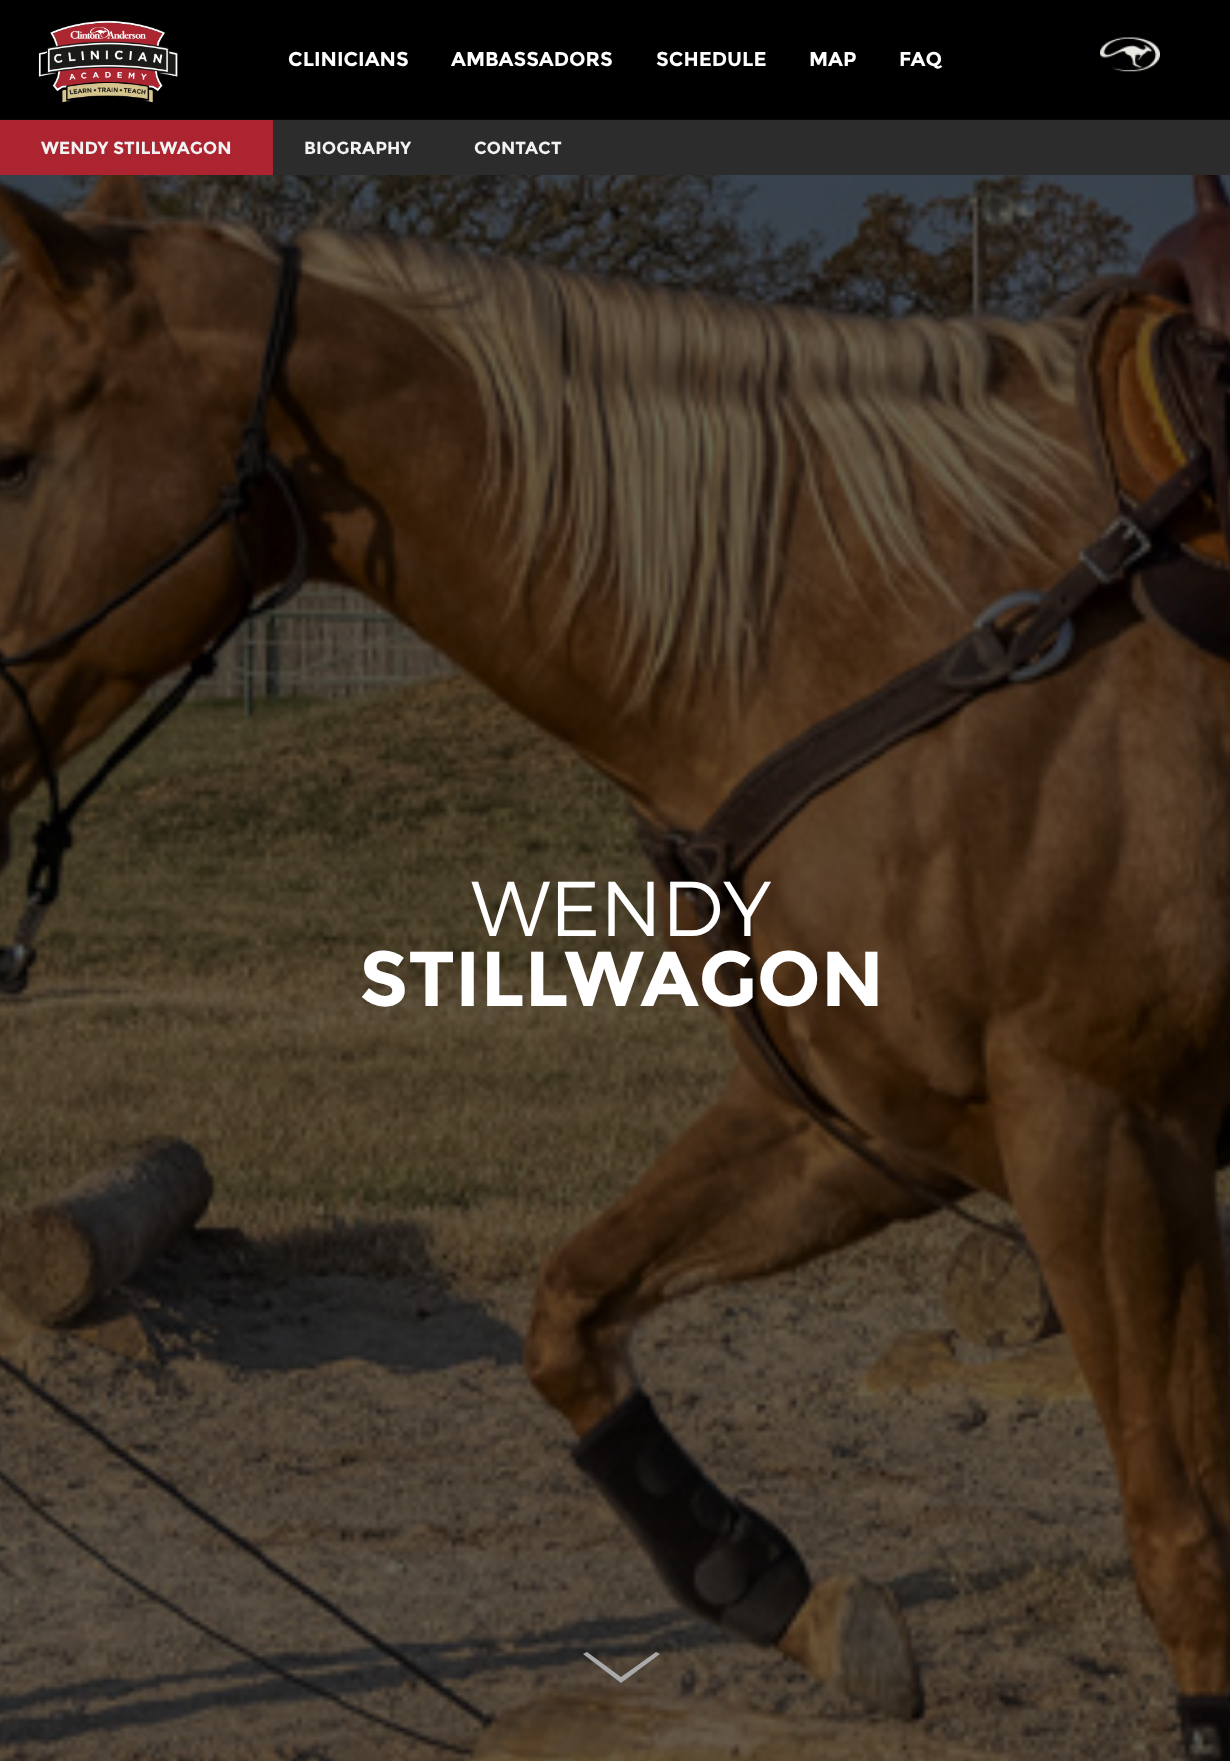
(async () => {
  const canvas = document.querySelector("canvas");
  canvas.width = 1230;
  canvas.height = 1761;
  const ctx = canvas.getContext("2d");
  ctx.miterLimit = 4;
  ctx.fontKerning = "normal";
  async function loadImage(src) {
    const img = new Image();
    img.src = src;
    await img.decode();
    return img;
  }
  let path;

  ctx.fillStyle = "#ffffff";
  ctx.fillRect(0, 0, 1230, 1761);
  ctx.fillStyle = "#000000";
  ctx.fillRect(0, 0, 1230, 119);
  ctx.fillStyle = "#080808";
  ctx.fillRect(0, 119, 1230, 1);
  ctx.drawImage(await loadImage("img/1.png"), 38, 20, 140, 83);
  ctx.drawImage(await loadImage("img/2.png"), 1100, 37, 60, 35);
  ctx.fillStyle = "#2c2c2c";
  ctx.fillRect(273, 120, 957, 55);
  ctx.fillStyle = "#ab2430";
  ctx.fillRect(0, 120, 273, 55);
  ctx.drawImage(await loadImage("img/3.png"), 0, 175, 1230, 1586);
  ctx.fillStyle = "#a9a9a9";
  path = new Path2D("M660 1654L621 1683L583 1654L587 1652L621 1677L656 1652Z");
  ctx.fill(path, "evenodd");
  ctx.font = "bold 20px Montserrat";
  ctx.fillStyle = "#ffffff";
  for (const [text, x, y] of [
    ["CLINICIANS", 288, 66],
    ["AMBASSADORS", 451, 66],
    ["SCHEDULE", 656, 66],
    ["MAP", 809, 66],
    ["FAQ", 899, 66],
  ]) {
    ctx.fillText(text, x, y);
  }
  ctx.font = "bold 17.5px Montserrat";
  ctx.fillStyle = "#f2f2f2";
  for (const [text, x, y] of [
    ["WENDY STILLWAGON", 41, 154],
    ["BIOGRAPHY", 304, 154],
    ["CONTACT", 474, 154],
  ]) {
    ctx.fillText(text, x, y);
  }
  ctx.font = "300 77.5px Montserrat";
  ctx.fillStyle = "#ffffff";
  ctx.fillText("WENDY", 471, 936);
  ctx.font = "bold 77.5px Montserrat";
  ctx.fillText("STILLWAGON", 359, 1006);
})();
